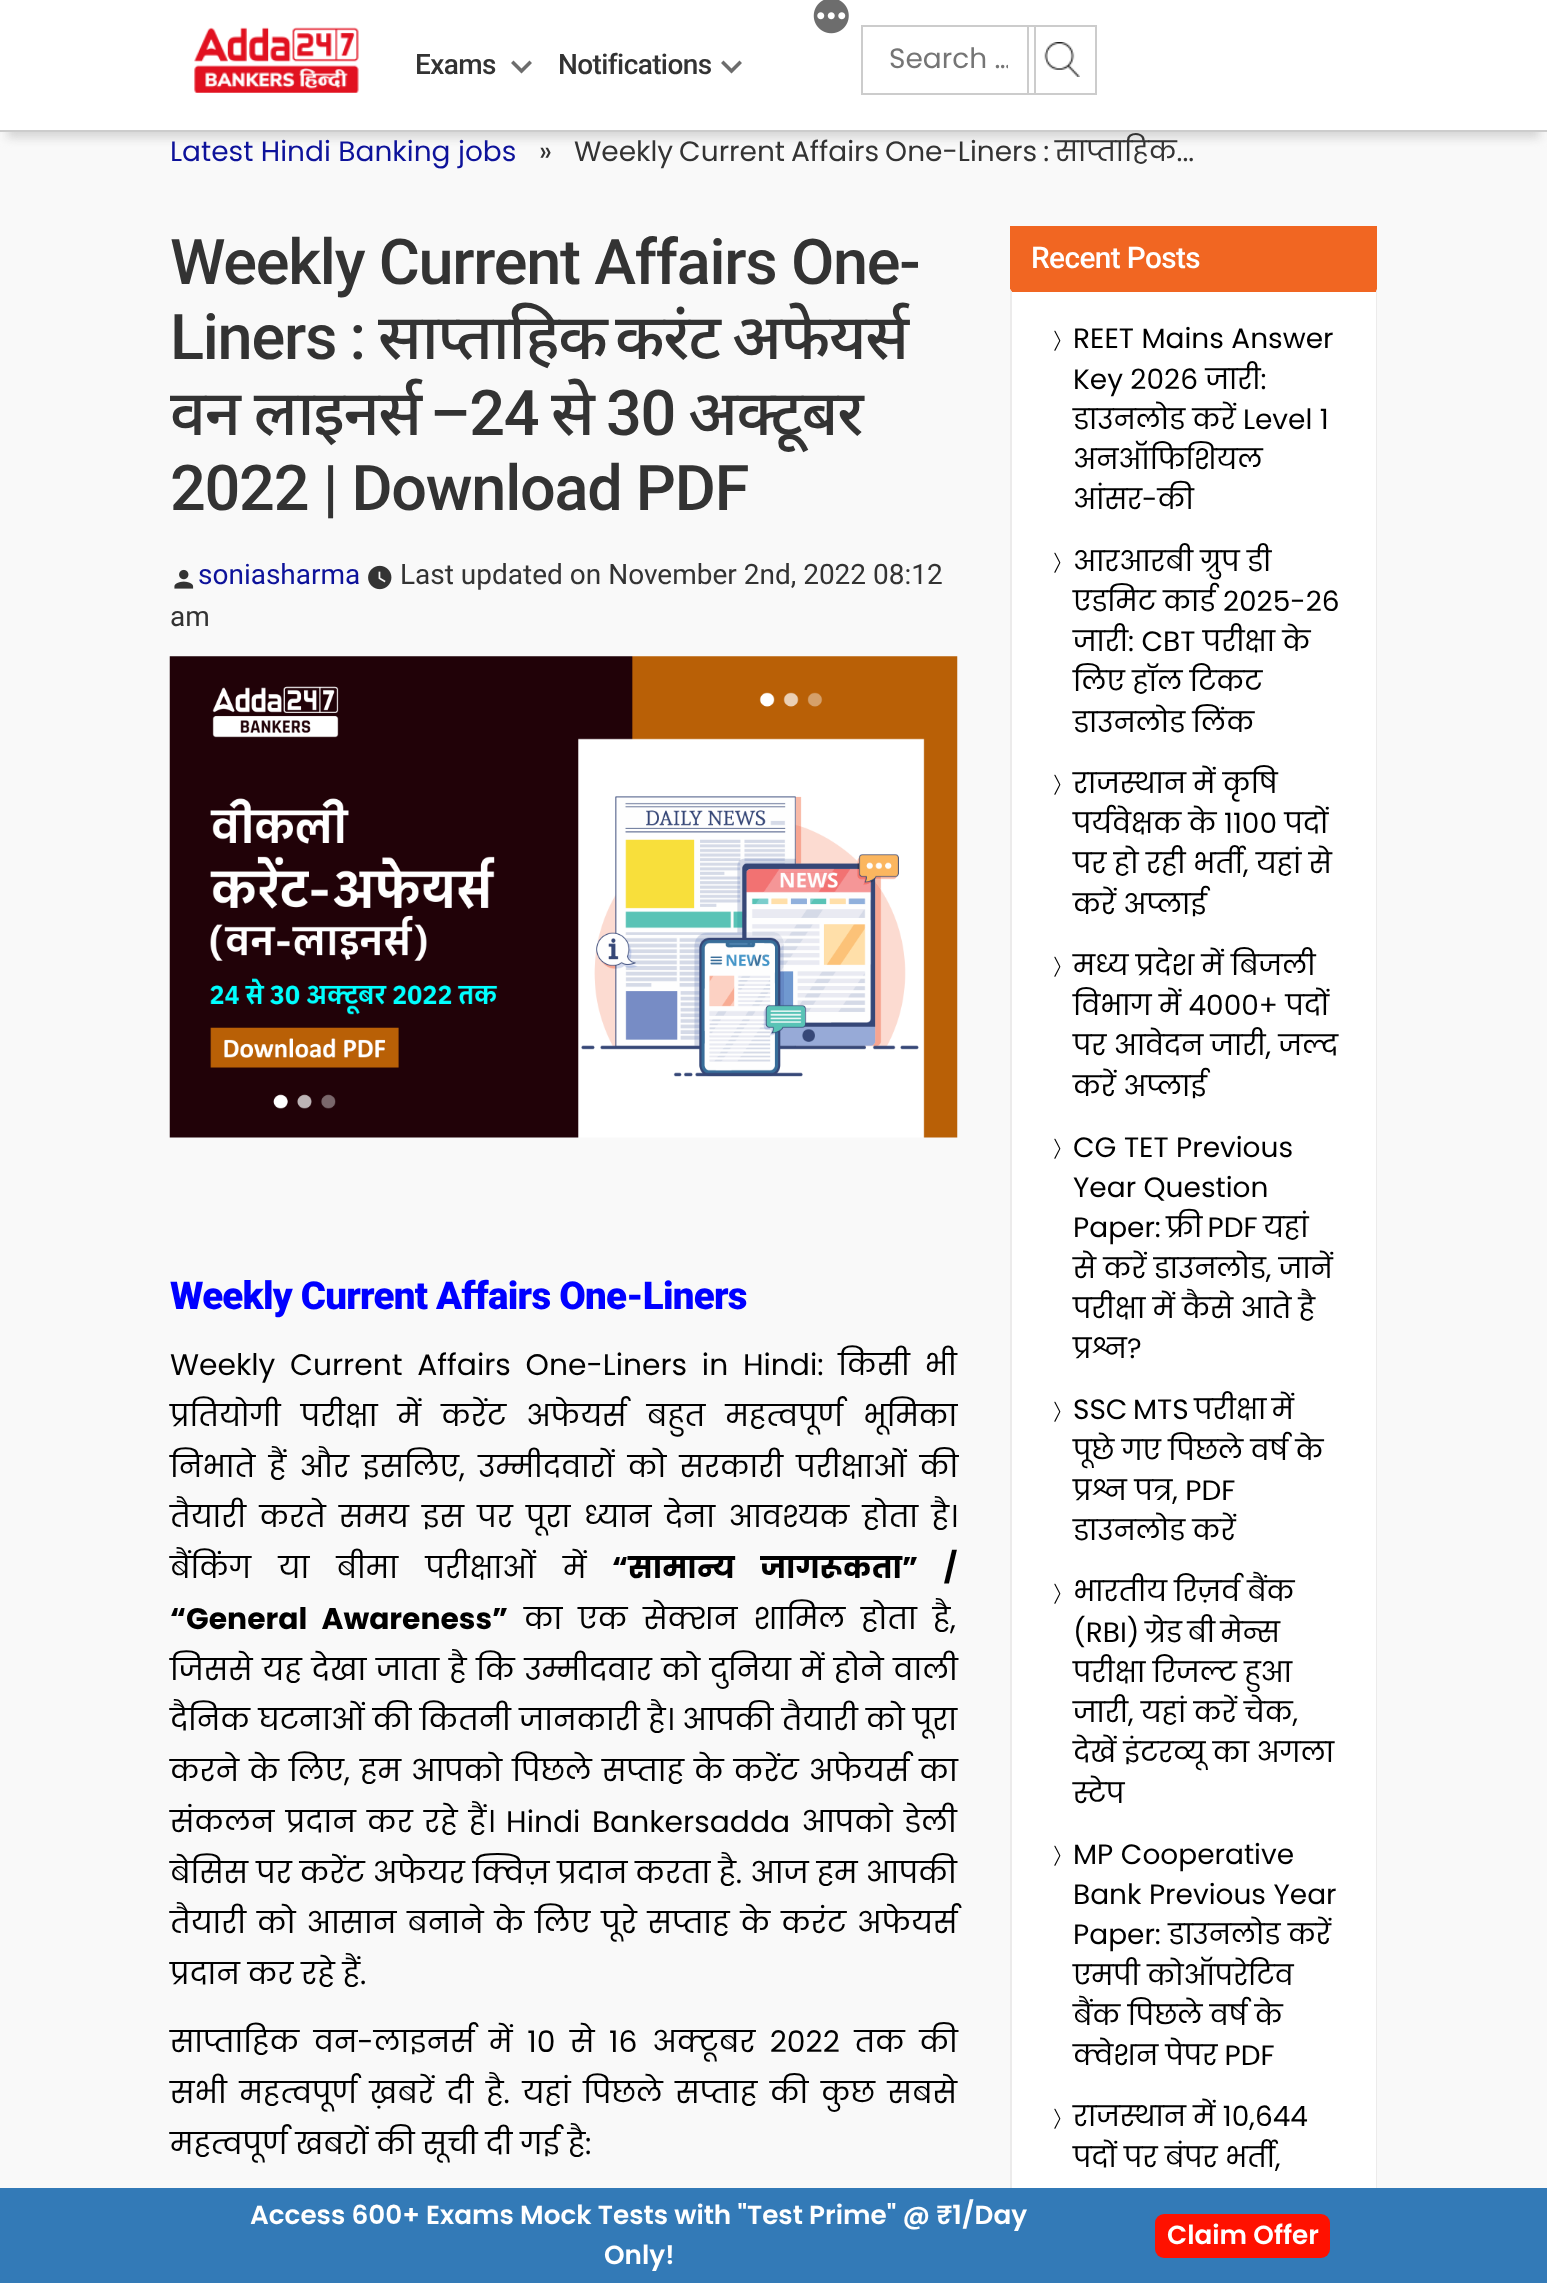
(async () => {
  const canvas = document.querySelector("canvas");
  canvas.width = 1547;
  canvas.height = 2283;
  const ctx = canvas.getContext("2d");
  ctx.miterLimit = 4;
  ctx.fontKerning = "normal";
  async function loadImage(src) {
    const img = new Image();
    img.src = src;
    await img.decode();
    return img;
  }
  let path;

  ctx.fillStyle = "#f9f9f9";
  ctx.fillRect(0, 0, 1547, 2283);
  ctx.fillStyle = "#d6d6d6";
  ctx.filter = "blur(5px)";
  ctx.beginPath();
  ctx.rect(7, 21, 1533, 117);
  ctx.fill();
  ctx.filter = "none";
  ctx.fillStyle = "#ffffff";
  ctx.fillRect(0, 0, 1547, 130);
  ctx.fillStyle = "#cccccc";
  ctx.fillRect(0, 130, 1547, 2);
  ctx.drawImage(await loadImage("img/1.png"), 194, 27, 165, 66);
  ctx.drawImage(await loadImage("img/2.png"), 813, 0, 36, 34);
  ctx.fillStyle = "#6d6d6d";
  path = new Path2D("M513.5 60.5L521.5 68.5L529.5 60.5L532 63L521.5 73.5L511 63Z");
  ctx.fill(path);
  path = new Path2D("M723.5 60.5L731.5 68.5L739.5 60.5L742 63L731.5 73.5L721 63Z");
  ctx.fill(path);
  ctx.strokeStyle = "#cccccc";
  ctx.lineWidth = 2;
  ctx.strokeRect(862, 26, 173, 68);
  ctx.drawImage(await loadImage("img/3.png"), 1044, 42, 36, 35);
  ctx.strokeRect(1028, 26, 68, 68);
  ctx.drawImage(await loadImage("img/4.png"), 174, 569, 20, 20);
  ctx.drawImage(await loadImage("img/5.png"), 368, 565, 24, 25);
  ctx.drawImage(await loadImage("img/6.png"), 169, 656, 789, 482);
  ctx.fillStyle = "#f16622";
  ctx.fillRect(1010, 226, 367, 63);
  ctx.fillStyle = "#ffffff";
  ctx.fillRect(1012, 292, 364, 1896);
  ctx.fillStyle = "#f16622";
  path = new Path2D("M1010 289H1377L1376 292H1012Z");
  ctx.fill(path);
  ctx.fillStyle = "#ecebeb";
  path = new Path2D("M1377 289V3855L1376 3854V292Z");
  ctx.fill(path);
  path = new Path2D("M1010 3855V289L1012 292V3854Z");
  ctx.fill(path);
  ctx.fillStyle = "#337ab7";
  ctx.fillRect(0, 2188, 1547, 95);
  ctx.fillStyle = "#ff1100";
  ctx.beginPath();
  ctx.roundRect(1155, 2214, 175, 44, 9);
  ctx.fill();
  ctx.letterSpacing = "-0.6px";
  ctx.font = "500 28px Roboto";
  ctx.fillStyle = "#333333";
  ctx.fillText("Exams", 415, 74);
  ctx.fillText("Notifications", 558, 74);
  ctx.save();
  ctx.beginPath();
  ctx.rect(889, 37, 119, 44);
  ctx.clip();
  ctx.letterSpacing = "0px";
  ctx.font = "28px Poppins";
  ctx.fillStyle = "#757575";
  ctx.fillText("Search …", 889, 68);
  ctx.restore();
  ctx.letterSpacing = "0px";
  ctx.font = "28px Poppins";
  ctx.fillStyle = "#0d129a";
  ctx.fillText("Latest Hindi Banking jobs", 170, 161);
  ctx.fillStyle = "#333333";
  ctx.fillText("»", 539, 161);
  ctx.wordSpacing = "-1.5px";
  ctx.fillText("Weekly Current Affairs One-Liners : साप्ताहिक...", 574, 161);
  ctx.letterSpacing = "-1.25px";
  ctx.wordSpacing = "0px";
  ctx.font = "500 63px Roboto";
  ctx.fillText("Weekly Current Affairs One-", 170, 284);
  ctx.wordSpacing = "-1px";
  ctx.fillText("Liners :", 170, 359);
  ctx.wordSpacing = "0px";
  ctx.font = "500 63px Noto Sans";
  for (const [text, x, y] of [
    ["साप्ताहिक", 378, 359],
    ["करंट", 615, 359],
    ["अफेयर्स", 732, 359],
  ]) {
    ctx.fillText(text, x, y);
  }
  ctx.wordSpacing = "-1px";
  ctx.fillText("वन लाइनर्स", 170, 435);
  ctx.wordSpacing = "0px";
  ctx.font = "500 63px Roboto";
  ctx.fillText("–24", 430, 435);
  ctx.font = "500 63px Noto Sans";
  ctx.fillText("से", 551, 435);
  ctx.font = "500 63px Roboto";
  ctx.fillText("30", 606, 435);
  ctx.font = "500 63px Noto Sans";
  ctx.fillText("अक्टूबर", 688, 435);
  ctx.font = "500 63px Roboto";
  ctx.fillText("2022 | Download PDF", 170, 510);
  ctx.letterSpacing = "0px";
  ctx.font = "28px Roboto";
  ctx.fillStyle = "#0d129a";
  ctx.fillText("soniasharma", 198, 584);
  ctx.fillStyle = "#333333";
  ctx.fillText("Last updated on November 2nd, 2022 08:12", 400, 584);
  ctx.fillText("am", 170, 626);
  ctx.letterSpacing = "-0.75px";
  ctx.font = "900 38.5px Roboto";
  ctx.fillStyle = "#0000ff";
  ctx.fillText("Weekly Current Affairs One-Liners", 170, 1309);
  ctx.letterSpacing = "0px";
  ctx.wordSpacing = "6.75px";
  ctx.font = "29.75px Poppins";
  ctx.fillStyle = "#000000";
  ctx.fillText("Weekly Current Affairs One-Liners in Hindi: किसी भी", 170, 1375);
  ctx.wordSpacing = "12.25px";
  ctx.fillText("प्रतियोगी परीक्षा में करेंट अफेयर्स बहुत महत्वपूर्ण भूमिका", 170, 1426);
  ctx.wordSpacing = "5.5px";
  ctx.fillText("निभाते हैं और इसलिए, उम्मीदवारों को सरकारी परीक्षाओं की", 170, 1477);
  ctx.fillText("तैयारी करते समय इस पर पूरा ध्यान देना आवश्यक होता है।", 170, 1527);
  ctx.wordSpacing = "19.5px";
  ctx.fillText("बैंकिंग या बीमा परीक्षाओं में", 170, 1578);
  ctx.font = "bold 29.75px Poppins";
  ctx.fillText("“सामान्य जागरूकता” /", 612, 1578);
  ctx.wordSpacing = "8px";
  ctx.fillText("“General Awareness”", 170, 1629);
  ctx.font = "29.75px Poppins";
  ctx.fillText("का एक सेक्शन शामिल होता है,", 524, 1629);
  ctx.wordSpacing = "1.9px";
  ctx.fillText("जिससे यह देखा जाता है कि उम्मीदवार को दुनिया में होने वाली", 170, 1680);
  ctx.wordSpacing = "0.5px";
  ctx.fillText("दैनिक घटनाओं की कितनी जानकारी है। आपकी तैयारी को पूरा", 170, 1730);
  ctx.wordSpacing = "2.25px";
  ctx.fillText("करने के लिए, हम आपको पिछले सप्ताह के करेंट अफेयर्स का", 170, 1781);
  ctx.wordSpacing = "3.5px";
  ctx.fillText("संकलन प्रदान कर रहे हैं। Hindi Bankersadda आपको डेली", 170, 1832);
  ctx.wordSpacing = "0.25px";
  ctx.fillText("बेसिस पर करेंट अफेयर क्विज़ प्रदान करता है. आज हम आपकी", 170, 1883);
  ctx.wordSpacing = "3.1px";
  ctx.fillText("तैयारी को आसान बनाने के लिए पूरे सप्ताह के करंट अफेयर्स", 170, 1933);
  ctx.wordSpacing = "0px";
  ctx.fillText("प्रदान कर रहे हैं.", 170, 1984);
  ctx.wordSpacing = "6.75px";
  ctx.fillText("साप्ताहिक वन-लाइनर्स में 10 से 16 अक्टूबर 2022 तक की", 170, 2052);
  ctx.wordSpacing = "4.75px";
  ctx.fillText("सभी महत्वपूर्ण ख़बरें दी है. यहां पिछले सप्ताह की कुछ सबसे", 170, 2103);
  ctx.wordSpacing = "0px";
  ctx.fillText("महत्वपूर्ण खबरों की सूची दी गई है:", 170, 2154);
  ctx.letterSpacing = "-0.6px";
  ctx.font = "500 29.75px Roboto";
  ctx.fillStyle = "#ffffff";
  ctx.fillText("Recent Posts", 1031, 268);
  ctx.letterSpacing = "0px";
  ctx.font = "500 24px WenQuanYi Zen Hei";
  ctx.fillStyle = "#000000";
  ctx.save();
  ctx.translate(1068, 352);
  ctx.rotate(-90 * Math.PI / 180);
  ctx.fillText("﹀", 0, 0);
  ctx.restore();
  ctx.font = "28px Poppins";
  for (const [text, x, y] of [
    ["REET Mains Answer", 1073, 348],
    ["Key 2026 जारी:", 1073, 389],
    ["डाउनलोड करें Level 1", 1073, 429],
    ["अनऑफिशियल", 1073, 469],
    ["आंसर-की", 1073, 509],
  ]) {
    ctx.fillText(text, x, y);
  }
  ctx.font = "500 24px WenQuanYi Zen Hei";
  ctx.save();
  ctx.translate(1068, 574);
  ctx.rotate(-90 * Math.PI / 180);
  ctx.fillText("﹀", 0, 0);
  ctx.restore();
  ctx.font = "28px Poppins";
  for (const [text, x, y] of [
    ["आरआरबी ग्रुप डी", 1073, 571],
    ["एडमिट कार्ड 2025-26", 1073, 611],
    ["जारी: CBT परीक्षा के", 1073, 651],
    ["लिए हॉल टिकट", 1073, 691],
    ["डाउनलोड लिंक", 1073, 732],
  ]) {
    ctx.fillText(text, x, y);
  }
  ctx.font = "500 24px WenQuanYi Zen Hei";
  ctx.save();
  ctx.translate(1068, 796);
  ctx.rotate(-90 * Math.PI / 180);
  ctx.fillText("﹀", 0, 0);
  ctx.restore();
  ctx.font = "28px Poppins";
  for (const [text, x, y] of [
    ["राजस्थान में कृषि", 1073, 793],
    ["पर्यवेक्षक के 1100 पदों", 1073, 833],
    ["पर हो रही भर्ती, यहां से", 1073, 873],
    ["करें अप्लाई", 1073, 914],
  ]) {
    ctx.fillText(text, x, y);
  }
  ctx.font = "500 24px WenQuanYi Zen Hei";
  ctx.save();
  ctx.translate(1068, 978);
  ctx.rotate(-90 * Math.PI / 180);
  ctx.fillText("﹀", 0, 0);
  ctx.restore();
  ctx.font = "28px Poppins";
  for (const [text, x, y] of [
    ["मध्य प्रदेश में बिजली", 1073, 975],
    ["विभाग में 4000+ पदों", 1073, 1015],
    ["पर आवेदन जारी, जल्द", 1073, 1055],
    ["करें अप्लाई", 1073, 1096],
  ]) {
    ctx.fillText(text, x, y);
  }
  ctx.font = "500 24px WenQuanYi Zen Hei";
  ctx.save();
  ctx.translate(1068, 1160);
  ctx.rotate(-90 * Math.PI / 180);
  ctx.fillText("﹀", 0, 0);
  ctx.restore();
  ctx.font = "28px Poppins";
  ctx.fillText("CG TET Previous", 1073, 1157);
  ctx.fillText("Year Question", 1073, 1197);
  ctx.wordSpacing = "-2px";
  ctx.fillText("Paper: फ्री PDF यहां", 1073, 1237);
  ctx.wordSpacing = "0px";
  for (const [text, x, y] of [
    ["से करें डाउनलोड, जानें", 1073, 1278],
    ["परीक्षा में कैसे आते है", 1073, 1318],
    ["प्रश्न?", 1073, 1358],
  ]) {
    ctx.fillText(text, x, y);
  }
  ctx.font = "500 24px WenQuanYi Zen Hei";
  ctx.save();
  ctx.translate(1068, 1423);
  ctx.rotate(-90 * Math.PI / 180);
  ctx.fillText("﹀", 0, 0);
  ctx.restore();
  ctx.wordSpacing = "-2px";
  ctx.font = "28px Poppins";
  ctx.fillText("SSC MTS परीक्षा में", 1073, 1419);
  ctx.wordSpacing = "0px";
  for (const [text, x, y] of [
    ["पूछे गए पिछले वर्ष के", 1073, 1460],
    ["प्रश्न पत्र, PDF", 1073, 1500],
    ["डाउनलोड करें", 1073, 1540],
  ]) {
    ctx.fillText(text, x, y);
  }
  ctx.font = "500 24px WenQuanYi Zen Hei";
  ctx.save();
  ctx.translate(1068, 1605);
  ctx.rotate(-90 * Math.PI / 180);
  ctx.fillText("﹀", 0, 0);
  ctx.restore();
  ctx.font = "28px Poppins";
  ctx.fillText("भारतीय रिज़र्व बैंक", 1073, 1601);
  ctx.wordSpacing = "-2px";
  ctx.fillText("(RBI) ग्रेड बी मेन्स", 1073, 1642);
  ctx.wordSpacing = "0px";
  for (const [text, x, y] of [
    ["परीक्षा रिजल्ट हुआ", 1073, 1682],
    ["जारी, यहां करें चेक,", 1073, 1722],
    ["देखें इंटरव्यू का अगला", 1073, 1762],
    ["स्टेप", 1073, 1803],
  ]) {
    ctx.fillText(text, x, y);
  }
  ctx.font = "500 24px WenQuanYi Zen Hei";
  ctx.save();
  ctx.translate(1068, 1867);
  ctx.rotate(-90 * Math.PI / 180);
  ctx.fillText("﹀", 0, 0);
  ctx.restore();
  ctx.font = "28px Poppins";
  for (const [text, x, y] of [
    ["MP Cooperative", 1073, 1864],
    ["Bank Previous Year", 1073, 1904],
    ["Paper: डाउनलोड करें", 1073, 1944],
    ["एमपी कोऑपरेटिव", 1073, 1985],
    ["बैंक पिछले वर्ष के", 1073, 2025],
    ["क्वेशन पेपर PDF", 1073, 2065],
  ]) {
    ctx.fillText(text, x, y);
  }
  ctx.font = "500 24px WenQuanYi Zen Hei";
  ctx.save();
  ctx.translate(1068, 2130);
  ctx.rotate(-90 * Math.PI / 180);
  ctx.fillText("﹀", 0, 0);
  ctx.restore();
  ctx.font = "28px Poppins";
  ctx.fillText("राजस्थान में 10,644", 1073, 2126);
  ctx.fillText("पदों पर बंपर भर्ती,", 1073, 2167);
  ctx.font = "600 26.25px Poppins";
  ctx.fillStyle = "#ffffff";
  for (const [text, x, y] of [
    ["Access 600+ Exams Mock Tests with \"Test Prime\" @ ₹1/Day", 250, 2224],
    ["Only!", 604, 2264],
    ["Claim Offer", 1167, 2244],
  ]) {
    ctx.fillText(text, x, y);
  }
})();
